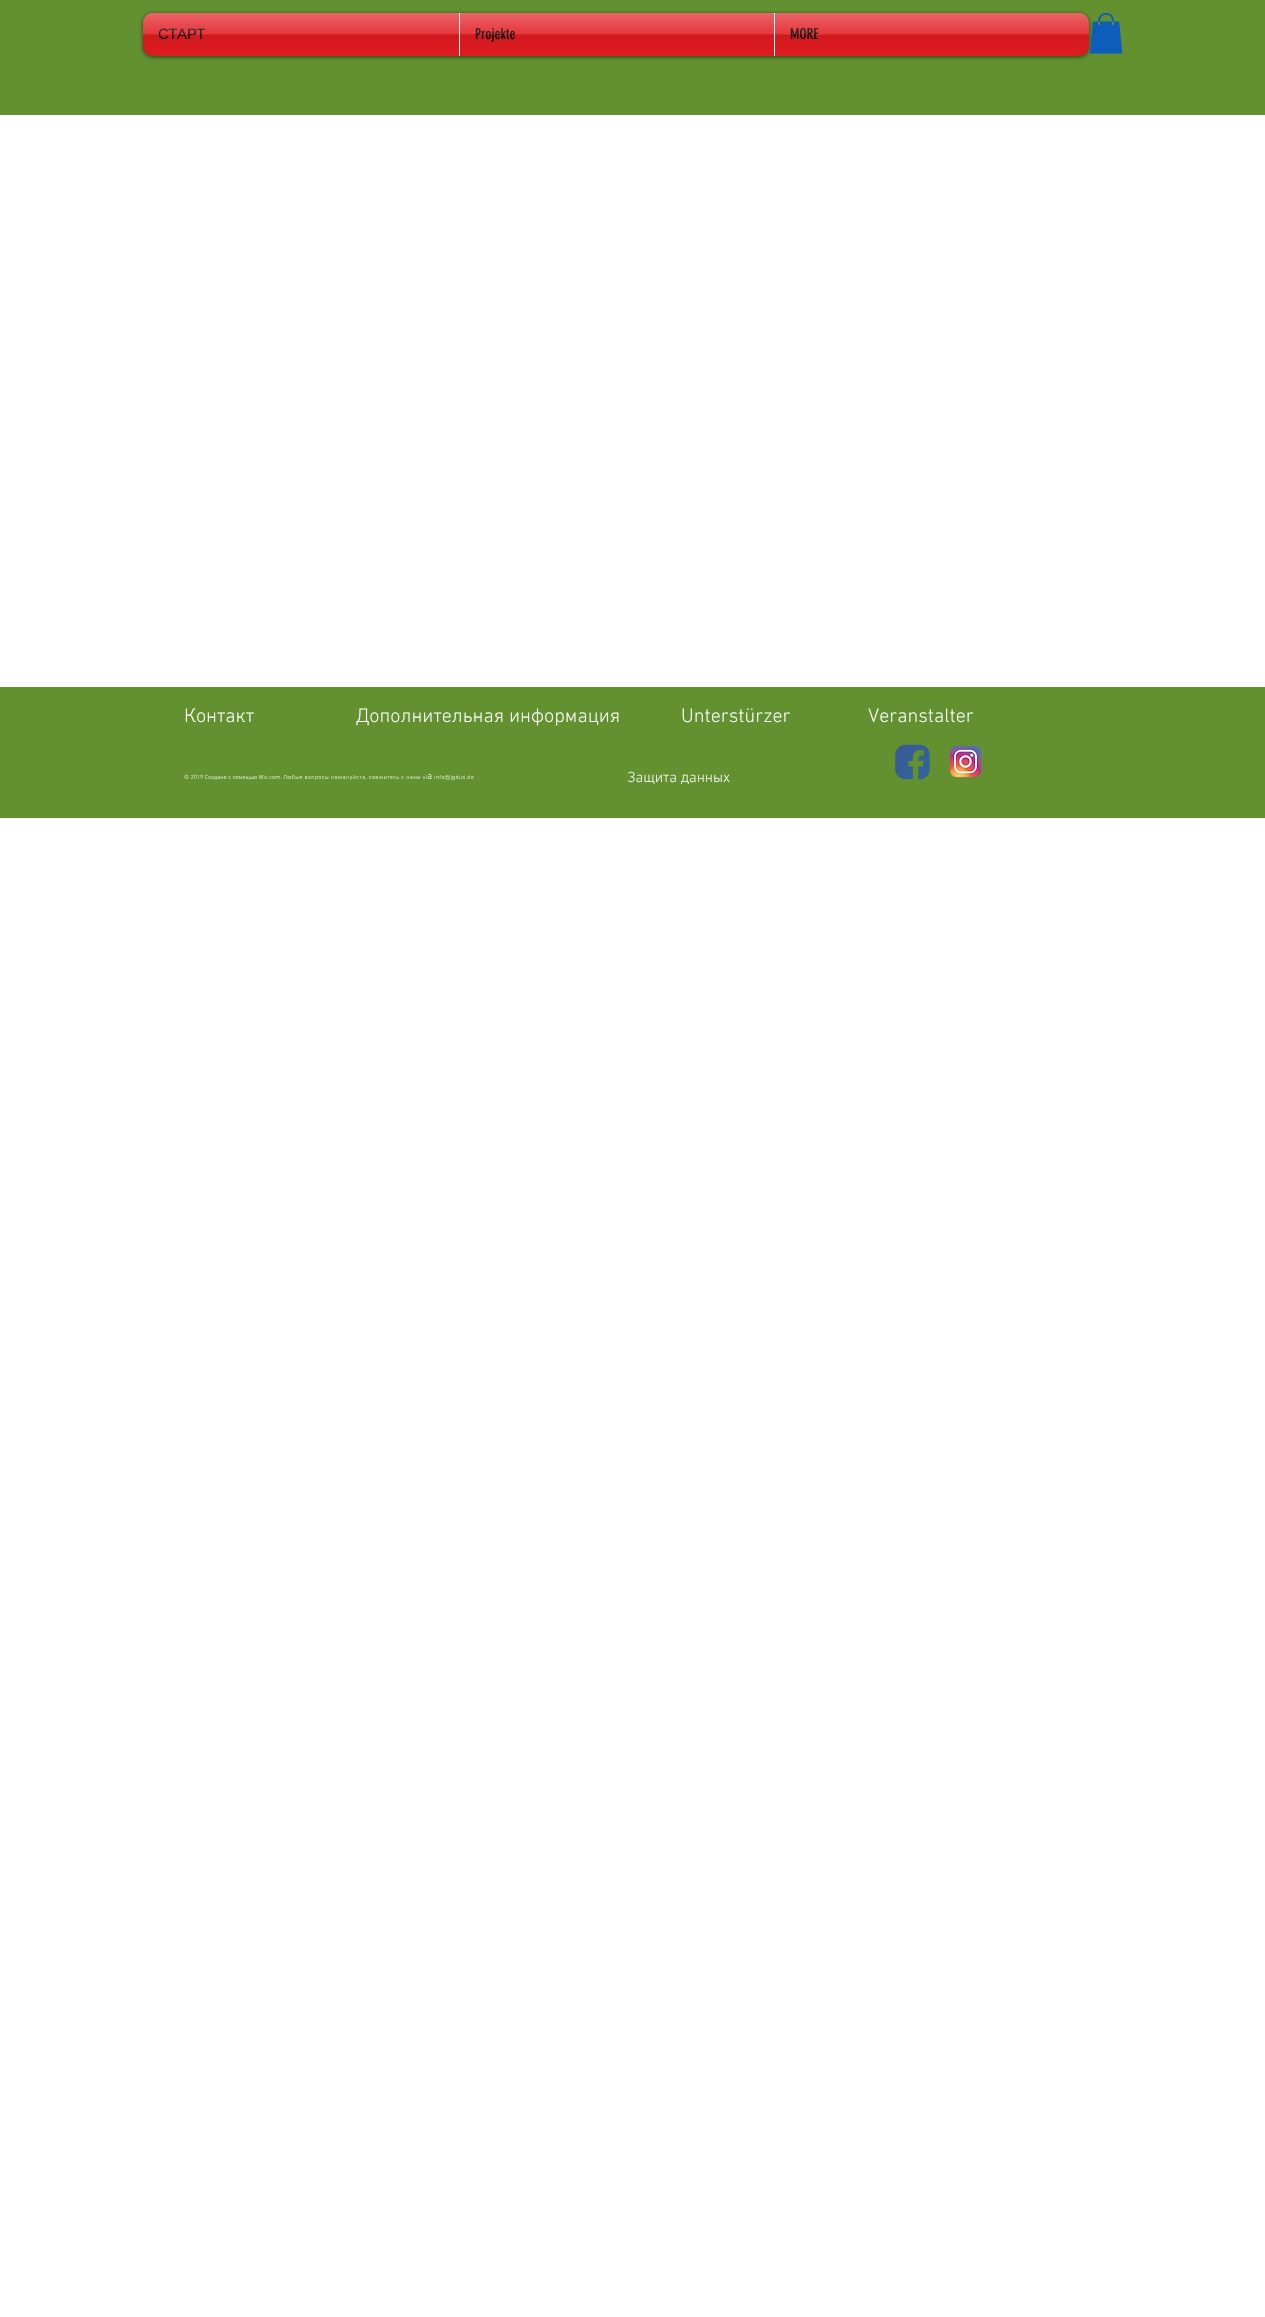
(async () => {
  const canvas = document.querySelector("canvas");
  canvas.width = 1265;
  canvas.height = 2317;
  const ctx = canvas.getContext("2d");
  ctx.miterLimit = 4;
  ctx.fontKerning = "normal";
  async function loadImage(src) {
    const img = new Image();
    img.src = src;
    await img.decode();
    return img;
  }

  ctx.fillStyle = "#ffffff";
  ctx.fillRect(0, 0, 1265, 2317);
  ctx.fillStyle = "#639130";
  ctx.fillRect(0, 0, 1265, 115);
  ctx.fillStyle = "rgba(0, 0, 0, 0.6)";
  ctx.filter = "blur(2px)";
  ctx.beginPath();
  ctx.roundRect(143, 14, 946, 43, 10);
  ctx.fill();
  ctx.filter = "none";
  ctx.drawImage(await loadImage("img/1.png"), 143, 13, 946, 38);
  ctx.fillStyle = "#e21c21";
  ctx.beginPath();
  ctx.roundRect(143, 13, 316, 43, [10, 0, 0, 10]);
  ctx.fill();
  ctx.fillRect(460, 13, 314, 43);
  ctx.fillStyle = "#ffffff";
  ctx.fillRect(459, 13, 1, 43);
  ctx.fillStyle = "#e21c21";
  ctx.beginPath();
  ctx.roundRect(774, 13, 315, 43, [0, 10, 10, 0]);
  ctx.fill();
  ctx.fillStyle = "#ffffff";
  ctx.fillRect(774, 13, 1, 43);
  ctx.drawImage(await loadImage("img/5.png"), 1089, 13, 34, 41);
  ctx.fillStyle = "#639130";
  ctx.fillRect(0, 687, 1265, 131);
  ctx.drawImage(await loadImage("img/6.png"), 895, 744, 35, 36);
  ctx.drawImage(await loadImage("img/7.png"), 949, 745, 33, 33);
  ctx.font = "15px Liberation Sans";
  ctx.fillStyle = "#000000";
  ctx.fillText("СТАРТ", 158, 39);
  ctx.drawImage(await loadImage("img/2.png"), 143, 13, 316, 42);
  ctx.font = "15px 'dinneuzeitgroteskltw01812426'";
  ctx.fillText("Projekte", 475, 39);
  ctx.drawImage(await loadImage("img/3.png"), 460, 13, 314, 42);
  ctx.fillText("MORE", 790, 39);
  ctx.drawImage(await loadImage("img/4.png"), 775, 13, 314, 42);
  ctx.font = "300 20px 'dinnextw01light'";
  ctx.fillStyle = "#ffffff";
  for (const [text, x, y] of [
    ["Контакт", 184, 722],
    ["Дополнительная информация", 356, 722],
    ["Unterstürzer", 681, 722],
    ["Veranstalter", 868, 722],
  ]) {
    ctx.fillText(text, x, y);
  }
  ctx.font = "300 6px 'dinnextw01light'";
  ctx.fillText("© 2019 Создано с помощью Wix.com.", 184, 779);
  ctx.letterSpacing = "0.3px";
  ctx.fillText("Любые вопросы пожалуйста, свяжитесь с нами vi", 283, 779);
  ctx.letterSpacing = "0px";
  ctx.font = "300 10px 'dinnextw01light'";
  ctx.fillText("а", 427, 779);
  ctx.letterSpacing = "0.3px";
  ctx.font = "300 6px 'dinnextw01light'";
  ctx.fillText("info@jgdus.de", 434, 779);
  ctx.letterSpacing = "0px";
  ctx.font = "300 15px 'dinnextw01light'";
  ctx.fillText("Защита данных", 627, 782);
})();
